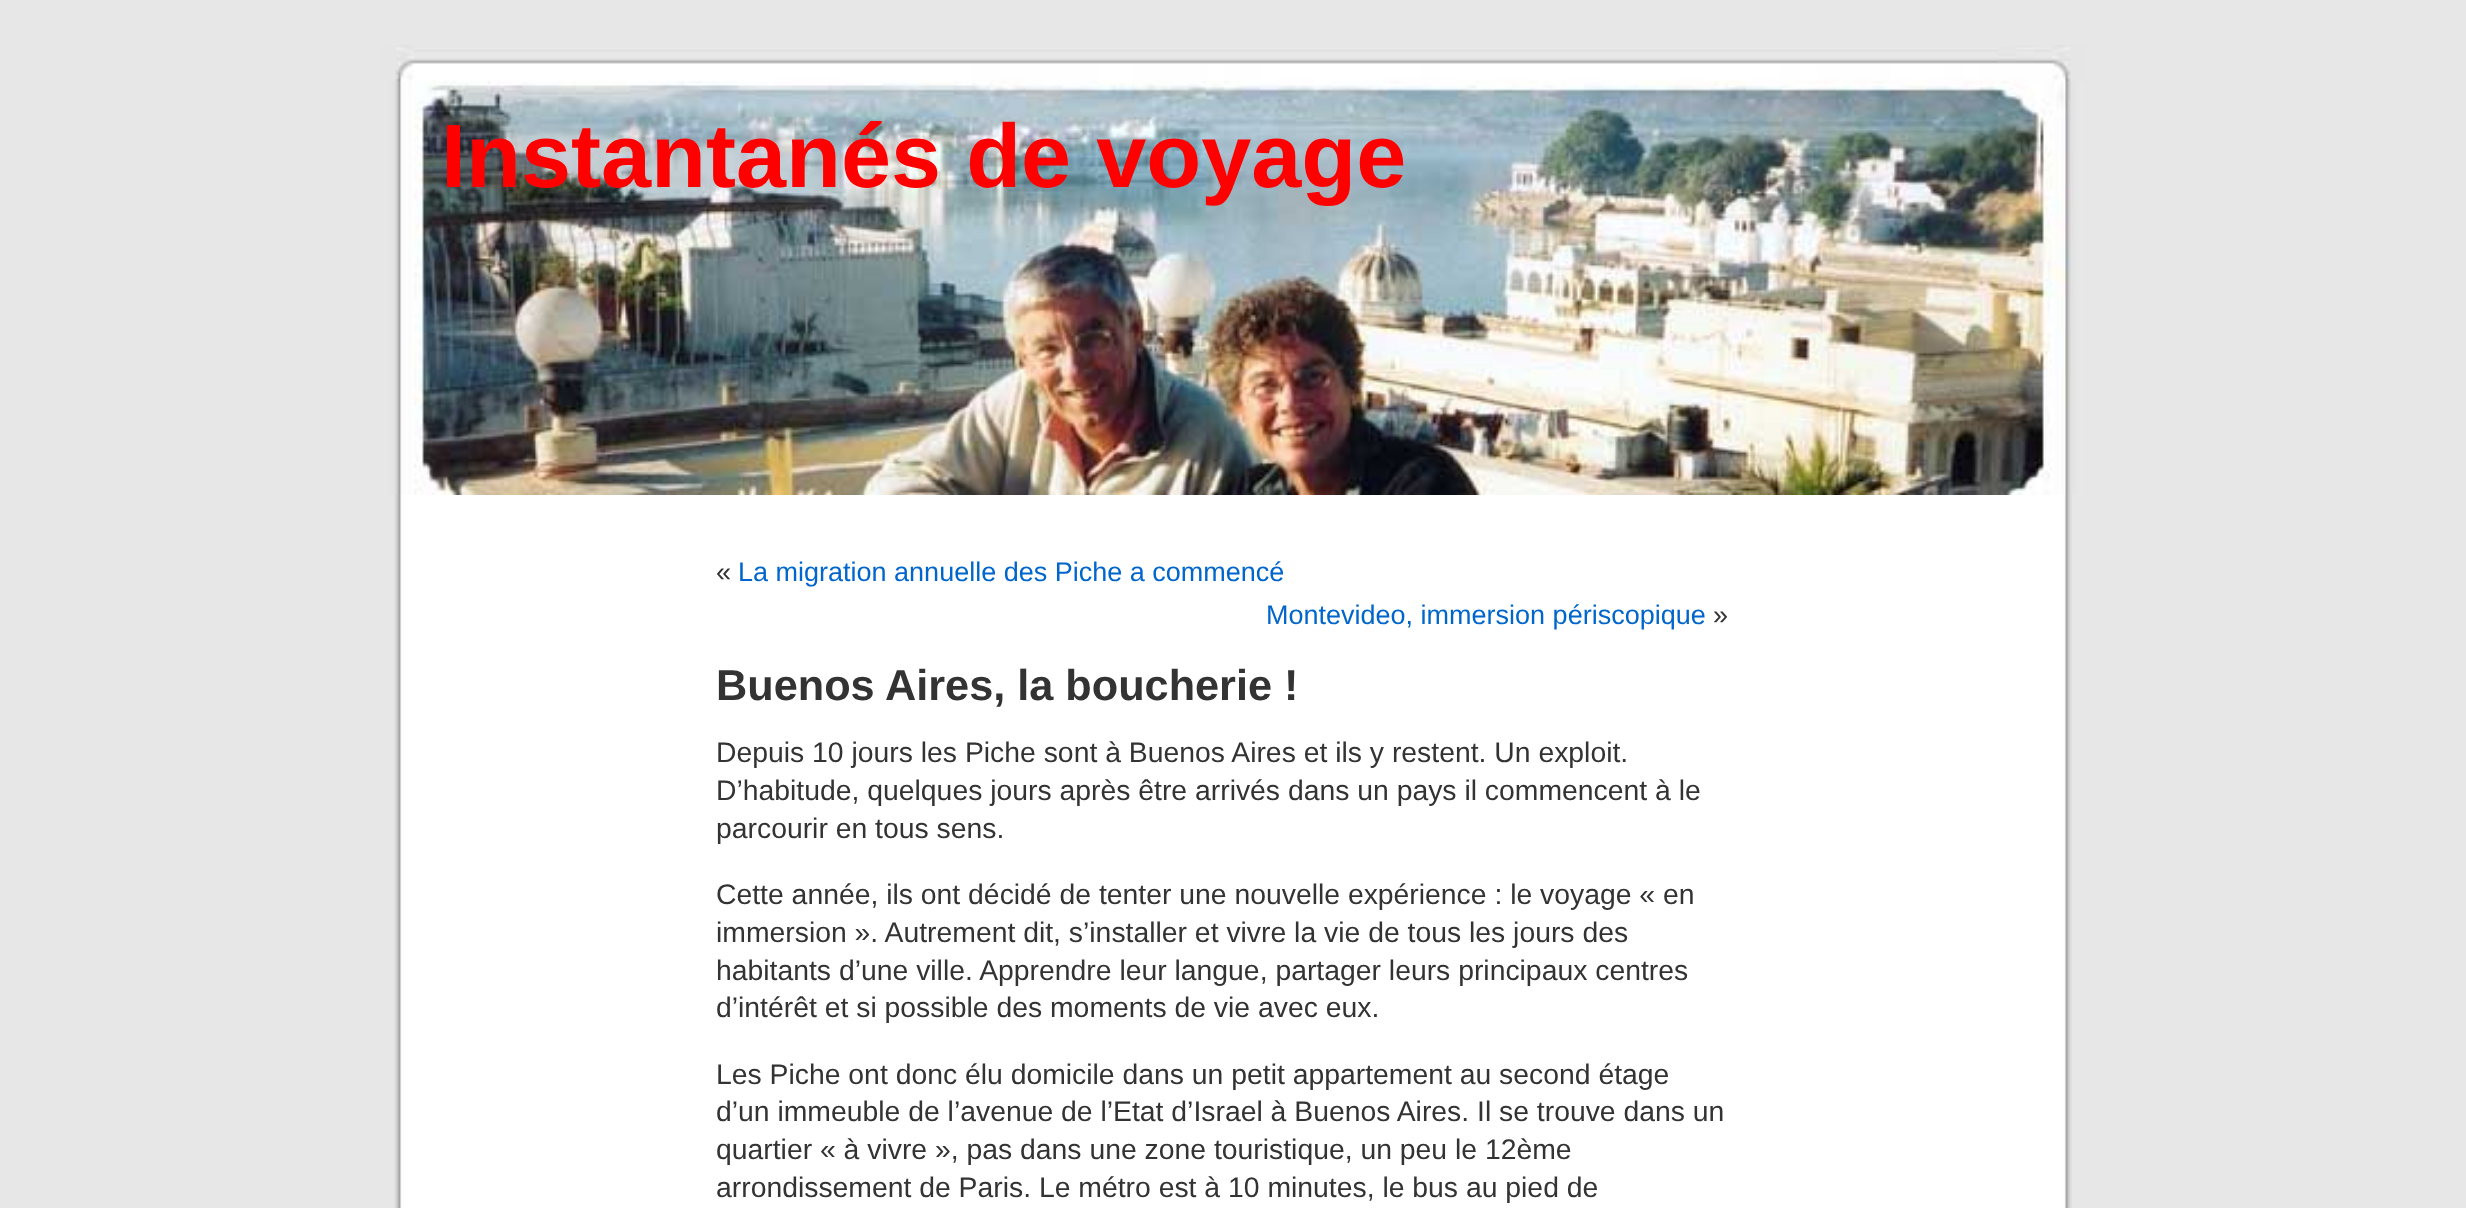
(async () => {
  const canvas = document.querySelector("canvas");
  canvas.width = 2466;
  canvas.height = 1208;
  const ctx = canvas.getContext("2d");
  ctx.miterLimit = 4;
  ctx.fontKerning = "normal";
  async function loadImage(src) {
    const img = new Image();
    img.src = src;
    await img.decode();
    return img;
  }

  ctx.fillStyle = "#e7e7e7";
  ctx.fillRect(0, 0, 2466, 1208);
  ctx.drawImage(await loadImage("img/1.png"), 394, 495, 1678, 713);
  ctx.drawImage(await loadImage("img/2.png"), 380, 45, 1706, 450);
  ctx.font = "bold 90px Liberation Sans";
  ctx.fillStyle = "#ff0000";
  ctx.fillText("Instantanés de voyage", 441, 187);
  ctx.font = "27px Liberation Sans";
  ctx.fillStyle = "#333333";
  ctx.fillText("«", 716, 581);
  ctx.fillStyle = "#0066cc";
  ctx.fillText("La migration annuelle des Piche a commencé", 738, 581);
  ctx.fillText("Montevideo, immersion périscopique", 1266, 624);
  ctx.fillStyle = "#333333";
  ctx.fillText("»", 1713, 624);
  ctx.font = "bold 43.25px Liberation Sans";
  ctx.fillText("Buenos Aires, la boucherie !", 716, 700);
  ctx.font = "28.35px Liberation Sans";
  for (const [text, x, y] of [
    ["Depuis 10 jours les Piche sont à Buenos Aires et ils y restent. Un exploit.", 716, 762],
    ["D’habitude, quelques jours après être arrivés dans un pays il commencent à le", 716, 800],
    ["parcourir en tous sens.", 716, 838],
    ["Cette année, ils ont décidé de tenter une nouvelle expérience : le voyage « en", 716, 904],
    ["immersion ». Autrement dit, s’installer et vivre la vie de tous les jours des", 716, 942],
    ["habitants d’une ville. Apprendre leur langue, partager leurs principaux centres", 716, 980],
    ["d’intérêt et si possible des moments de vie avec eux.", 716, 1017],
    ["Les Piche ont donc élu domicile dans un petit appartement au second étage", 716, 1084],
    ["d’un immeuble de l’avenue de l’Etat d’Israel à Buenos Aires. Il se trouve dans un", 716, 1121],
    ["quartier « à vivre », pas dans une zone touristique, un peu le 12ème", 716, 1159],
    ["arrondissement de Paris. Le métro est à 10 minutes, le bus au pied de", 716, 1197],
  ]) {
    ctx.fillText(text, x, y);
  }
})();
